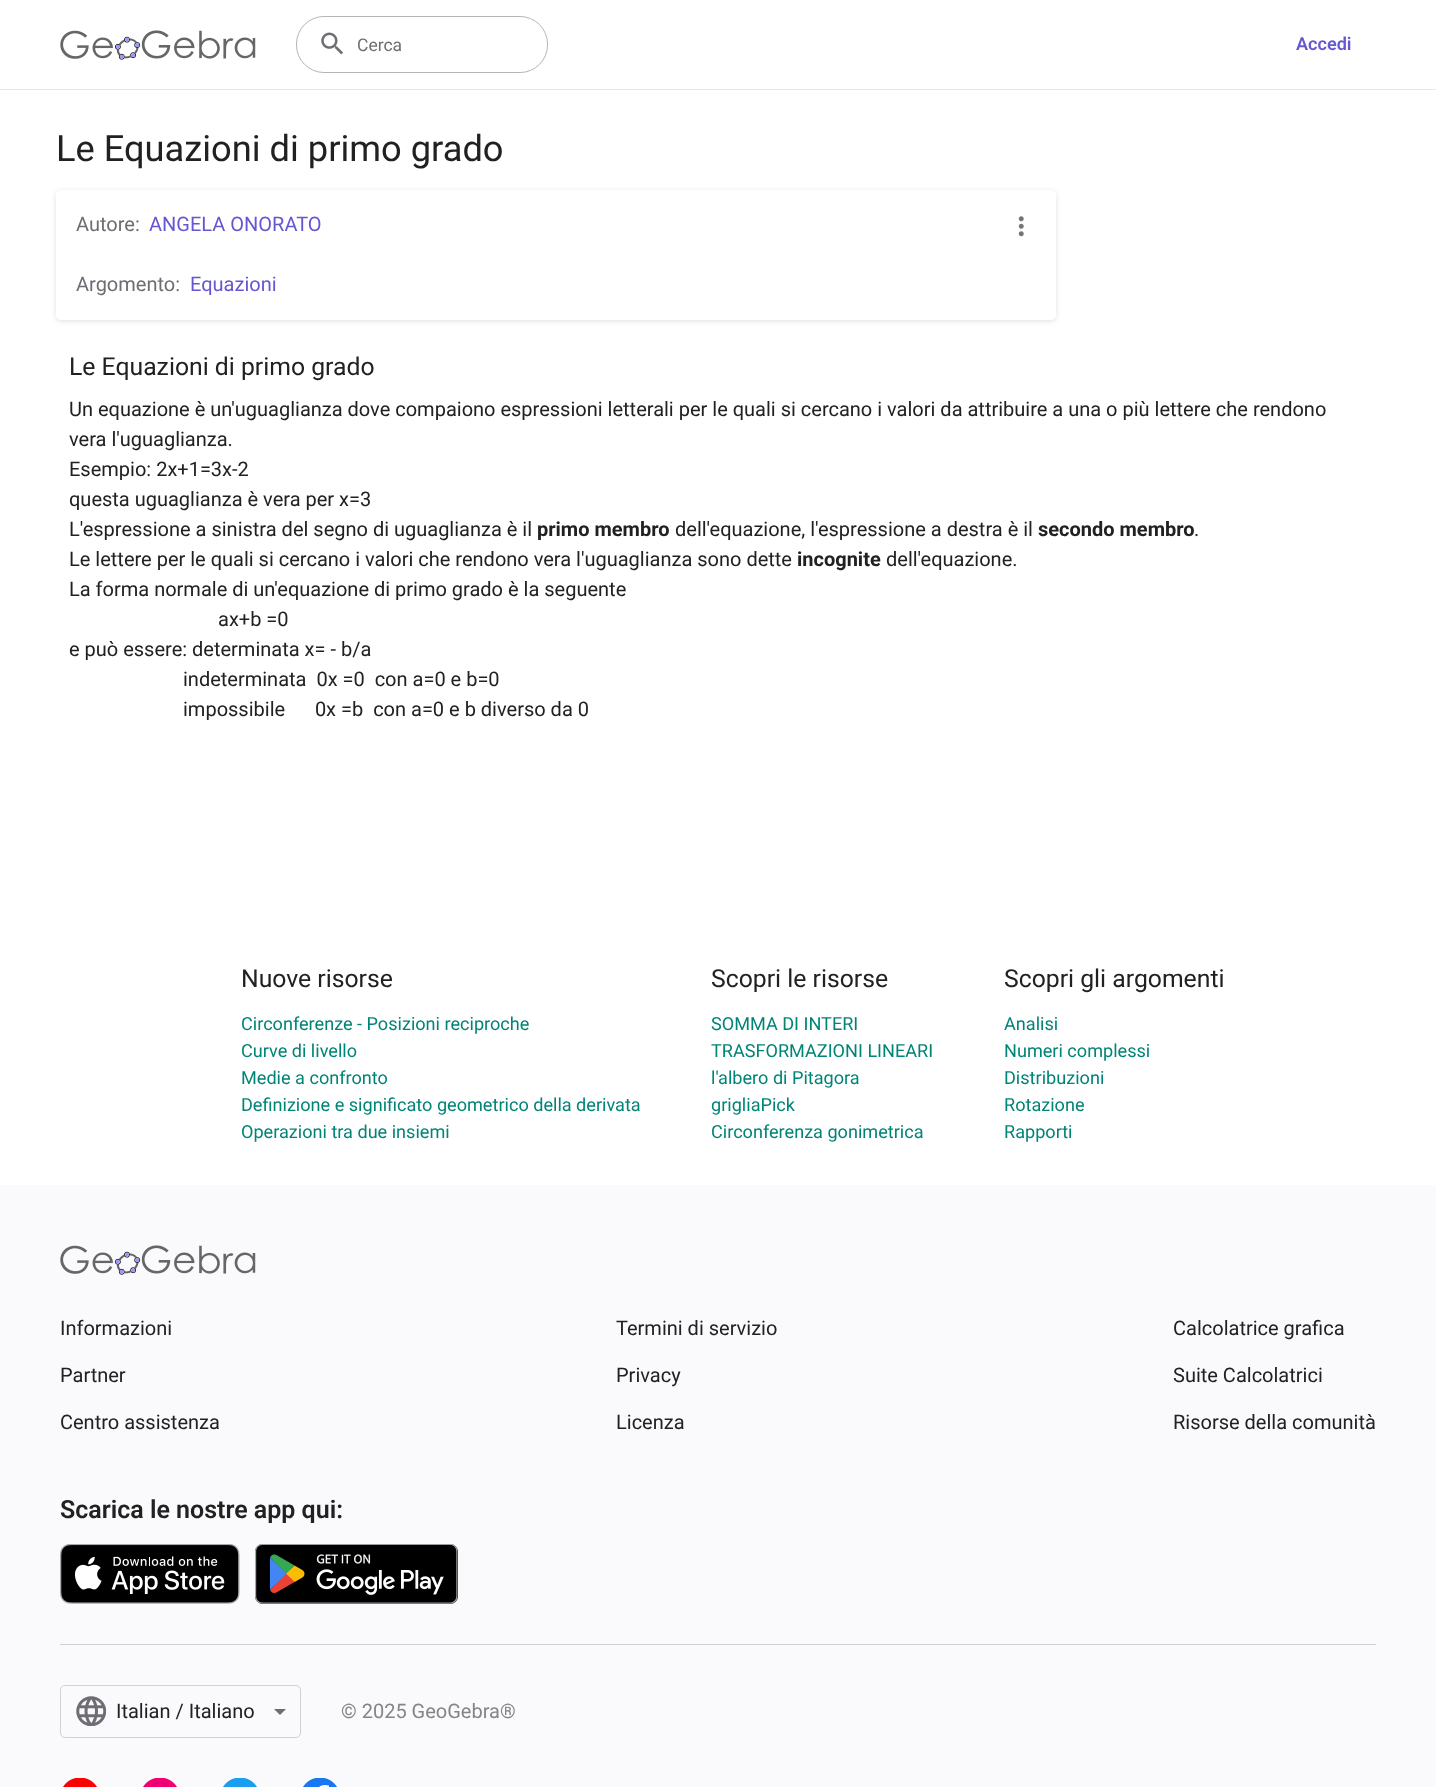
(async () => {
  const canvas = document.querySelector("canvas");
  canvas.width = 1436;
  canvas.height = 1787;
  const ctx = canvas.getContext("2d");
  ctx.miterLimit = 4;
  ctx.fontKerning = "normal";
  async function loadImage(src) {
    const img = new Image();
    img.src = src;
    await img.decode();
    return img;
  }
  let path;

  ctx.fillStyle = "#ffffff";
  ctx.fillRect(0, 0, 1436, 1787);
  ctx.fillStyle = "#e6e6eb";
  ctx.fillRect(0, 89, 1436, 1);
  ctx.drawImage(await loadImage("img/1.png"), 60, 30, 196, 30);
  ctx.beginPath();
  ctx.roundRect(296.5, 16.5, 251, 56, 27.5);
  ctx.strokeStyle = "#b4b3ba";
  ctx.stroke();
  ctx.drawImage(await loadImage("img/2.png"), 321, 32, 22, 23);
  ctx.fillStyle = "rgba(28, 28, 31, 0.14)";
  ctx.filter = "blur(2.5px)";
  ctx.beginPath();
  ctx.roundRect(56, 191, 1000, 130, 5);
  ctx.fill();
  ctx.filter = "none";
  ctx.fillStyle = "#ffffff";
  ctx.beginPath();
  ctx.roundRect(56, 190, 1000, 130, 5);
  ctx.fill();
  ctx.drawImage(await loadImage("img/3.png"), 1018, 216, 6, 21);
  ctx.fillStyle = "#fafafc";
  ctx.fillRect(0, 1185, 1436, 602);
  ctx.drawImage(await loadImage("img/4.png"), 60, 1245, 196, 30);
  ctx.drawImage(await loadImage("img/5.png"), 60, 1544, 180, 60);
  ctx.drawImage(await loadImage("img/6.png"), 255, 1544, 203, 60);
  ctx.fillStyle = "#d1d0d6";
  ctx.fillRect(60, 1644, 1316, 1);
  ctx.beginPath();
  ctx.roundRect(60.5, 1685.5, 240, 52, 4.5);
  ctx.strokeStyle = "#d1d0d6";
  ctx.stroke();
  ctx.drawImage(await loadImage("img/7.png"), 76, 1696, 30, 30);
  ctx.fillStyle = "#6e6d73";
  path = new Path2D("M274 1709L280 1715L286 1709Z");
  ctx.fill(path);
  ctx.drawImage(await loadImage("img/8.png"), 63, 1778, 34, 9);
  ctx.drawImage(await loadImage("img/9.png"), 143, 1778, 34, 9);
  ctx.drawImage(await loadImage("img/10.png"), 223, 1778, 34, 9);
  ctx.drawImage(await loadImage("img/11.png"), 303, 1778, 34, 9);
  ctx.font = "17.5px Roboto";
  ctx.fillText("Cerca", 357, 51);
  ctx.font = "600 18.1px Roboto";
  ctx.fillStyle = "#6557d2";
  ctx.fillText("Accedi", 1296, 50);
  ctx.font = "36.25px Roboto";
  ctx.fillStyle = "#212121";
  ctx.fillText("Le Equazioni di primo grado", 56, 161);
  ctx.font = "20px Roboto";
  ctx.fillStyle = "#6e6d73";
  ctx.fillText("Autore:", 76, 231);
  ctx.fillStyle = "#6557d2";
  ctx.fillText("ANGELA ONORATO", 149, 231);
  ctx.fillStyle = "#6e6d73";
  ctx.fillText("Argomento:", 76, 291);
  ctx.fillStyle = "#6557d2";
  ctx.fillText("Equazioni", 190, 291);
  ctx.font = "24.75px Roboto";
  ctx.fillStyle = "#212121";
  ctx.fillText("Le Equazioni di primo grado", 69, 375);
  ctx.font = "20px Roboto";
  for (const [text, x, y] of [
    ["Un equazione è un'uguaglianza dove compaiono espressioni letterali per le quali si cercano i valori da attribuire a una o più lettere che rendono", 69, 416],
    ["vera l'uguaglianza.", 69, 446],
    ["Esempio: 2x+1=3x-2", 69, 476],
    ["questa uguaglianza è vera per x=3", 69, 506],
    ["L'espressione a sinistra del segno di uguaglianza è il", 69, 536],
  ]) {
    ctx.fillText(text, x, y);
  }
  ctx.font = "bold 20px Roboto";
  ctx.fillText("primo membro", 537, 536);
  ctx.font = "20px Roboto";
  ctx.fillText("dell'equazione, l'espressione a destra è il", 675, 536);
  ctx.font = "bold 20px Roboto";
  ctx.fillText("secondo membro", 1038, 536);
  ctx.font = "20px Roboto";
  ctx.fillText(".", 1194, 536);
  ctx.fillText("Le lettere per le quali si cercano i valori che rendono vera l'uguaglianza sono dette", 69, 566);
  ctx.font = "bold 20px Roboto";
  ctx.fillText("incognite", 797, 566);
  ctx.font = "20px Roboto";
  for (const [text, x, y] of [
    ["dell'equazione.", 886, 566],
    ["La forma normale di un'equazione di primo grado è la seguente", 69, 596],
    ["ax+b =0", 218, 626],
    ["e può essere: determinata x= - b/a", 69, 656],
    ["indeterminata  0x =0  con a=0 e b=0", 183, 686],
    ["impossibile      0x =b  con a=0 e b diverso da 0", 183, 716],
  ]) {
    ctx.fillText(text, x, y);
  }
  ctx.font = "24.75px Roboto";
  ctx.fillText("Nuove risorse", 241, 987);
  ctx.font = "18.1px Roboto";
  ctx.fillStyle = "#008475";
  for (const [text, x, y] of [
    ["Circonferenze - Posizioni reciproche", 241, 1030],
    ["Curve di livello", 241, 1057],
    ["Medie a confronto", 241, 1084],
    ["Definizione e significato geometrico della derivata", 241, 1111],
    ["Operazioni tra due insiemi", 241, 1138],
  ]) {
    ctx.fillText(text, x, y);
  }
  ctx.font = "24.75px Roboto";
  ctx.fillStyle = "#212121";
  ctx.fillText("Scopri le risorse", 711, 987);
  ctx.font = "18.1px Roboto";
  ctx.fillStyle = "#008475";
  for (const [text, x, y] of [
    ["SOMMA DI INTERI", 711, 1030],
    ["TRASFORMAZIONI LINEARI", 711, 1057],
    ["l'albero di Pitagora", 711, 1084],
    ["grigliaPick", 711, 1111],
    ["Circonferenza gonimetrica", 711, 1138],
  ]) {
    ctx.fillText(text, x, y);
  }
  ctx.font = "24.75px Roboto";
  ctx.fillStyle = "#212121";
  ctx.fillText("Scopri gli argomenti", 1004, 987);
  ctx.font = "18.1px Roboto";
  ctx.fillStyle = "#008475";
  for (const [text, x, y] of [
    ["Analisi", 1004, 1030],
    ["Numeri complessi", 1004, 1057],
    ["Distribuzioni", 1004, 1084],
    ["Rotazione", 1004, 1111],
    ["Rapporti", 1004, 1138],
  ]) {
    ctx.fillText(text, x, y);
  }
  ctx.font = "20px Roboto";
  ctx.fillStyle = "#212121";
  for (const [text, x, y] of [
    ["Informazioni", 60, 1335],
    ["Partner", 60, 1382],
    ["Centro assistenza", 60, 1429],
    ["Termini di servizio", 616, 1335],
    ["Privacy", 616, 1382],
    ["Licenza", 616, 1429],
    ["Calcolatrice grafica", 1173, 1335],
    ["Suite Calcolatrici", 1173, 1382],
    ["Risorse della comunità", 1173, 1429],
  ]) {
    ctx.fillText(text, x, y);
  }
  ctx.font = "600 25px Roboto";
  ctx.fillText("Scarica le nostre app qui:", 60, 1518);
  ctx.font = "20px Roboto";
  ctx.fillText("Italian / Italiano", 116, 1718);
  ctx.fillStyle = "#85848a";
  ctx.fillText("© 2025 GeoGebra®", 341, 1718);
})();
